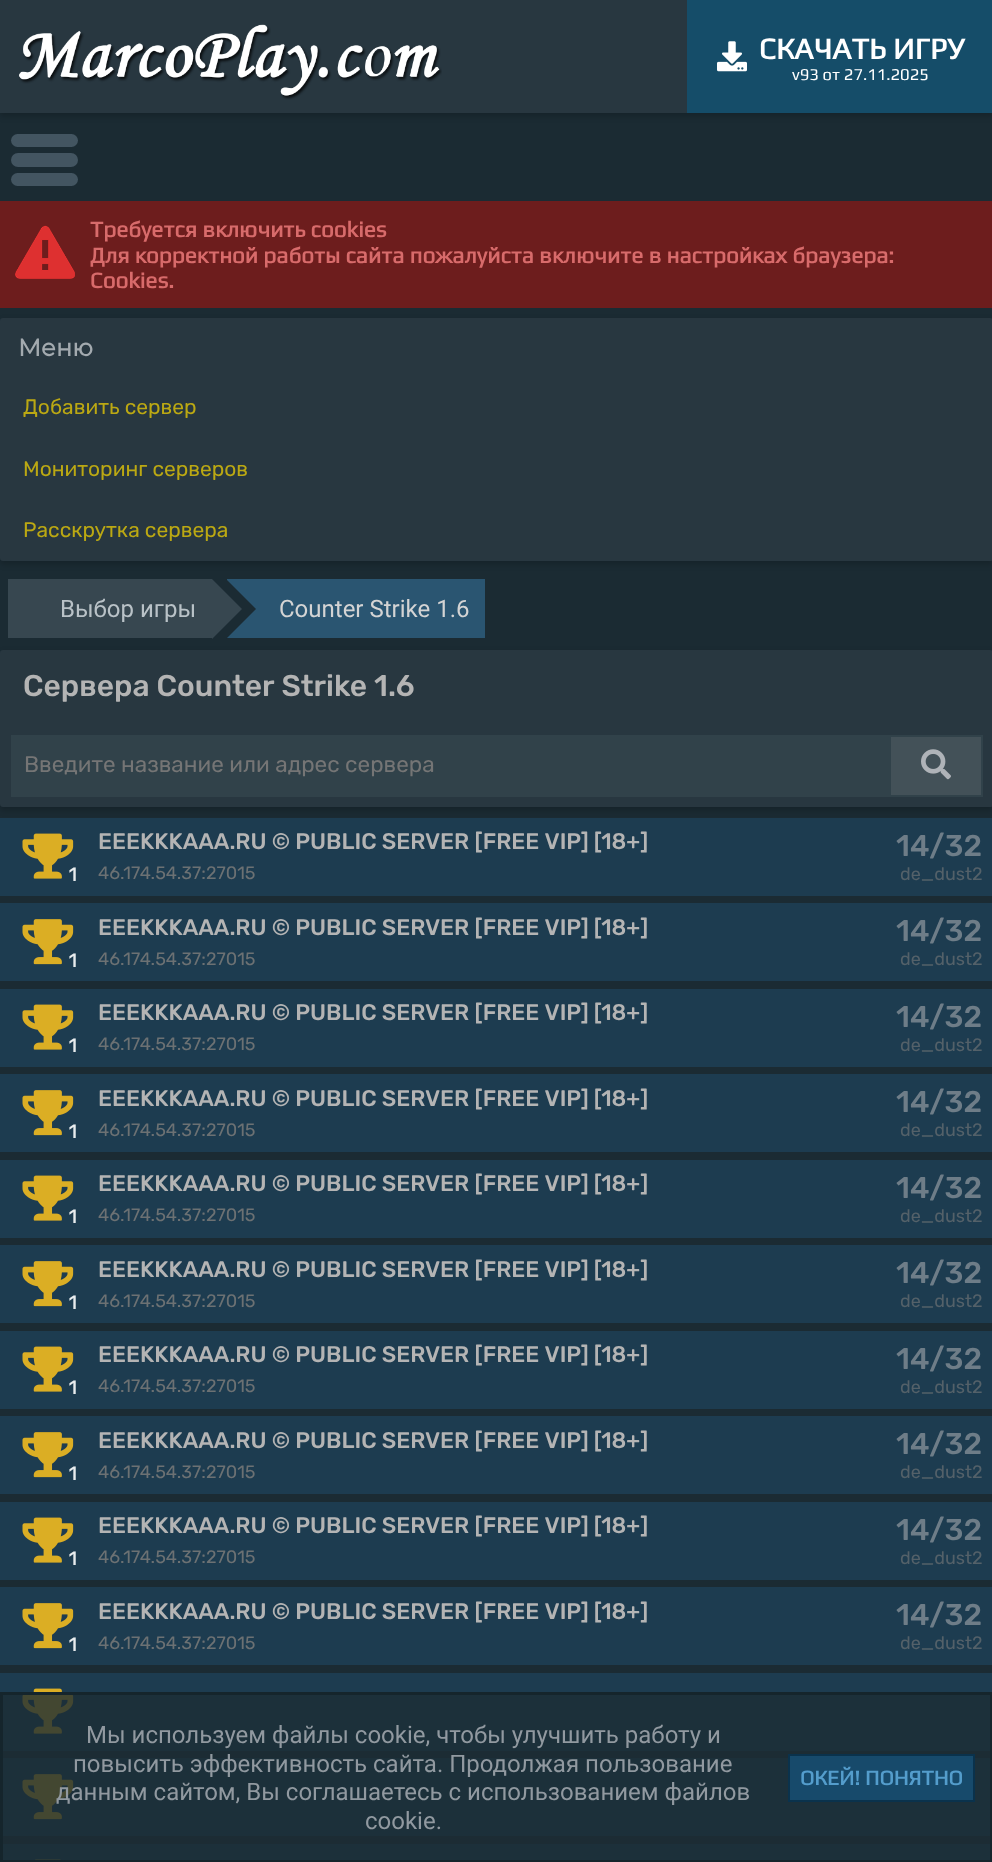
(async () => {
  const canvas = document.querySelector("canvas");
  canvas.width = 992;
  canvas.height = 1862;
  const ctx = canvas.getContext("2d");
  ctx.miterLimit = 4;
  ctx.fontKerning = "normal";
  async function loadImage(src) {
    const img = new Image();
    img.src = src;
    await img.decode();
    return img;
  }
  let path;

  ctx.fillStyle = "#1b2b33";
  ctx.fillRect(0, 0, 992, 1862);
  ctx.fillStyle = "rgba(0, 0, 0, 0.2)";
  ctx.filter = "blur(3px)";
  ctx.beginPath();
  ctx.rect(0, 3, 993, 113);
  ctx.fill();
  ctx.filter = "none";
  ctx.fillStyle = "#283740";
  ctx.fillRect(0, 0, 687, 113);
  ctx.drawImage(await loadImage("img/1.png"), 19, 24, 423, 76);
  ctx.fillStyle = "#154d69";
  ctx.fillRect(687, 0, 305, 113);
  ctx.drawImage(await loadImage("img/2.png"), 717, 41, 30, 31);
  ctx.fillStyle = "#435561";
  ctx.beginPath();
  ctx.roundRect(11, 134, 67, 13, 6.5);
  ctx.fill();
  ctx.beginPath();
  ctx.roundRect(11, 153, 67, 14, 7);
  ctx.fill();
  ctx.beginPath();
  ctx.roundRect(11, 173, 67, 13, 6.5);
  ctx.fill();
  ctx.fillStyle = "#6d1d1d";
  ctx.fillRect(0, 201, 992, 107);
  ctx.drawImage(await loadImage("img/3.png"), 15, 225, 60, 54);
  ctx.fillStyle = "rgba(0, 0, 0, 0.2)";
  ctx.filter = "blur(3px)";
  ctx.beginPath();
  ctx.roundRect(0, 321, 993, 243, 3);
  ctx.fill();
  ctx.filter = "none";
  ctx.fillStyle = "#283740";
  ctx.beginPath();
  ctx.roundRect(0, 318, 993, 243, 3);
  ctx.fill();
  ctx.fillStyle = "#374750";
  ctx.fillRect(8, 579, 204, 59);
  ctx.fillStyle = "#2a5571";
  ctx.fillRect(227, 579, 258, 59);
  ctx.fillStyle = "#1b2b33";
  path = new Path2D("M226 639V579L256 609Z");
  ctx.fill(path);
  ctx.fillStyle = "#374750";
  path = new Path2D("M212 639V579L242 609Z");
  ctx.fill(path);
  ctx.fillStyle = "rgba(0, 0, 0, 0.2)";
  ctx.filter = "blur(3px)";
  ctx.beginPath();
  ctx.roundRect(0, 653, 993, 157, 3);
  ctx.fill();
  ctx.filter = "none";
  ctx.fillStyle = "#283740";
  ctx.beginPath();
  ctx.roundRect(0, 650, 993, 157, 3);
  ctx.fill();
  for (const [x, y, w, h, color] of [
    [11, 735, 880, 62, "#31424a"],
    [891, 737, 90, 58, "#435158"],
    [891, 735, 92, 2, "#31424a"],
    [981, 735, 2, 62, "#31424a"],
    [891, 795, 92, 2, "#31424a"],
  ]) {
    ctx.fillStyle = color;
    ctx.fillRect(x, y, w, h);
  }
  ctx.drawImage(await loadImage("img/4.png"), 921, 749, 30, 31);
  ctx.fillStyle = "#1d3c50";
  ctx.fillRect(0, 818, 992, 78);
  ctx.drawImage(await loadImage("img/5.png"), 22, 833, 52, 46);
  ctx.fillRect(0, 903, 992, 78);
  ctx.drawImage(await loadImage("img/6.png"), 22, 919, 52, 46);
  ctx.fillRect(0, 989, 992, 78);
  ctx.drawImage(await loadImage("img/5.png"), 22, 1004, 52, 46);
  ctx.fillRect(0, 1074, 992, 78);
  ctx.drawImage(await loadImage("img/6.png"), 22, 1090, 52, 46);
  ctx.fillRect(0, 1160, 992, 78);
  ctx.drawImage(await loadImage("img/5.png"), 22, 1175, 52, 46);
  ctx.fillRect(0, 1245, 992, 78);
  ctx.drawImage(await loadImage("img/6.png"), 22, 1261, 52, 46);
  ctx.fillRect(0, 1331, 992, 78);
  ctx.drawImage(await loadImage("img/5.png"), 22, 1346, 52, 46);
  ctx.fillRect(0, 1416, 992, 78);
  ctx.drawImage(await loadImage("img/6.png"), 22, 1432, 52, 46);
  ctx.fillRect(0, 1502, 992, 78);
  ctx.drawImage(await loadImage("img/5.png"), 22, 1517, 52, 46);
  ctx.fillRect(0, 1587, 992, 78);
  ctx.drawImage(await loadImage("img/6.png"), 22, 1603, 52, 46);
  ctx.fillRect(0, 1673, 992, 78);
  ctx.drawImage(await loadImage("img/5.png"), 22, 1688, 52, 46);
  ctx.fillRect(3, 1758, 987, 78);
  ctx.drawImage(await loadImage("img/6.png"), 22, 1774, 52, 46);
  ctx.fillRect(3, 1844, 987, 16);
  ctx.drawImage(await loadImage("img/7.png"), 34, 1859, 27, 1);
  ctx.fillStyle = "rgba(29, 45, 53, 0.8)";
  ctx.beginPath();
  ctx.rect(1.5, 1693.5, 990, 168);
  ctx.fill();
  ctx.strokeStyle = "#15252c";
  ctx.lineWidth = 3;
  ctx.stroke();
  ctx.fillStyle = "#174a6b";
  ctx.beginPath();
  ctx.rect(789, 1755, 185, 46);
  ctx.fill();
  ctx.strokeStyle = "#0a324c";
  ctx.lineWidth = 2;
  ctx.stroke();
  ctx.font = "bold 30px Play";
  ctx.fillStyle = "#ffffff";
  ctx.fillText("СКАЧАТЬ ИГРУ", 759, 59);
  ctx.font = "16.5px Play";
  ctx.fillText("v93 от 27.11.2025", 792, 80);
  ctx.font = "bold 22.5px Play";
  ctx.fillStyle = "#d86b6b";
  for (const [text, x, y] of [
    ["Требуется включить cookies", 90, 237],
    ["Для корректной работы сайта пожалуйста включите в настройках браузера:", 90, 263],
    ["Cookies.", 90, 288],
  ]) {
    ctx.fillText(text, x, y);
  }
  ctx.font = "bold 24px Montserrat";
  ctx.fillStyle = "#a3aaaf";
  ctx.fillText("Меню", 18, 356);
  ctx.font = "21px Rubik";
  ctx.fillStyle = "#bba813";
  for (const [text, x, y] of [
    ["Добавить сервер", 23, 414],
    ["Мониторинг серверов", 23, 476],
    ["Расскрутка сервера", 23, 537],
  ]) {
    ctx.fillText(text, x, y);
  }
  ctx.font = "24px Roboto";
  ctx.fillStyle = "#b9c2c7";
  ctx.fillText("Выбор игры", 60, 617);
  ctx.fillStyle = "#d4d4d4";
  ctx.fillText("Counter Strike 1.6", 279, 617);
  ctx.font = "500 30px Rubik";
  ctx.fillStyle = "#b4b4b4";
  ctx.fillText("Сервера Counter Strike 1.6", 23, 696);
  ctx.font = "22.5px Rubik";
  ctx.fillStyle = "#757575";
  ctx.fillText("Введите название или адрес сервера", 24, 772);
  ctx.font = "bold 20px Play";
  ctx.fillStyle = "#e8ecee";
  ctx.fillText("1", 67, 881);
  ctx.font = "500 22.5px Rubik";
  ctx.fillStyle = "#b4b4b4";
  ctx.fillText("EEEKKKAAA.RU © PUBLIC SERVER [FREE VIP] [18+]", 98, 849);
  ctx.font = "18px Rubik";
  ctx.fillStyle = "#6c7173";
  ctx.fillText("46.174.54.37:27015", 98, 879);
  ctx.font = "500 30px Rubik";
  ctx.fillStyle = "#6e7d88";
  ctx.fillText("14/32", 896, 856);
  ctx.font = "18px Rubik";
  ctx.fillStyle = "#546169";
  ctx.fillText("de_dust2", 900, 880);
  ctx.font = "bold 20px Play";
  ctx.fillStyle = "#e8ecee";
  ctx.fillText("1", 67, 967);
  ctx.font = "500 22.5px Rubik";
  ctx.fillStyle = "#b4b4b4";
  ctx.fillText("EEEKKKAAA.RU © PUBLIC SERVER [FREE VIP] [18+]", 98, 935);
  ctx.font = "18px Rubik";
  ctx.fillStyle = "#6c7173";
  ctx.fillText("46.174.54.37:27015", 98, 965);
  ctx.font = "500 30px Rubik";
  ctx.fillStyle = "#6e7d88";
  ctx.fillText("14/32", 896, 941);
  ctx.font = "18px Rubik";
  ctx.fillStyle = "#546169";
  ctx.fillText("de_dust2", 900, 965);
  ctx.font = "bold 20px Play";
  ctx.fillStyle = "#e8ecee";
  ctx.fillText("1", 67, 1052);
  ctx.font = "500 22.5px Rubik";
  ctx.fillStyle = "#b4b4b4";
  ctx.fillText("EEEKKKAAA.RU © PUBLIC SERVER [FREE VIP] [18+]", 98, 1020);
  ctx.font = "18px Rubik";
  ctx.fillStyle = "#6c7173";
  ctx.fillText("46.174.54.37:27015", 98, 1050);
  ctx.font = "500 30px Rubik";
  ctx.fillStyle = "#6e7d88";
  ctx.fillText("14/32", 896, 1027);
  ctx.font = "18px Rubik";
  ctx.fillStyle = "#546169";
  ctx.fillText("de_dust2", 900, 1051);
  ctx.font = "bold 20px Play";
  ctx.fillStyle = "#e8ecee";
  ctx.fillText("1", 67, 1138);
  ctx.font = "500 22.5px Rubik";
  ctx.fillStyle = "#b4b4b4";
  ctx.fillText("EEEKKKAAA.RU © PUBLIC SERVER [FREE VIP] [18+]", 98, 1106);
  ctx.font = "18px Rubik";
  ctx.fillStyle = "#6c7173";
  ctx.fillText("46.174.54.37:27015", 98, 1136);
  ctx.font = "500 30px Rubik";
  ctx.fillStyle = "#6e7d88";
  ctx.fillText("14/32", 896, 1112);
  ctx.font = "18px Rubik";
  ctx.fillStyle = "#546169";
  ctx.fillText("de_dust2", 900, 1136);
  ctx.font = "bold 20px Play";
  ctx.fillStyle = "#e8ecee";
  ctx.fillText("1", 67, 1223);
  ctx.font = "500 22.5px Rubik";
  ctx.fillStyle = "#b4b4b4";
  ctx.fillText("EEEKKKAAA.RU © PUBLIC SERVER [FREE VIP] [18+]", 98, 1191);
  ctx.font = "18px Rubik";
  ctx.fillStyle = "#6c7173";
  ctx.fillText("46.174.54.37:27015", 98, 1221);
  ctx.font = "500 30px Rubik";
  ctx.fillStyle = "#6e7d88";
  ctx.fillText("14/32", 896, 1198);
  ctx.font = "18px Rubik";
  ctx.fillStyle = "#546169";
  ctx.fillText("de_dust2", 900, 1222);
  ctx.font = "bold 20px Play";
  ctx.fillStyle = "#e8ecee";
  ctx.fillText("1", 67, 1309);
  ctx.font = "500 22.5px Rubik";
  ctx.fillStyle = "#b4b4b4";
  ctx.fillText("EEEKKKAAA.RU © PUBLIC SERVER [FREE VIP] [18+]", 98, 1277);
  ctx.font = "18px Rubik";
  ctx.fillStyle = "#6c7173";
  ctx.fillText("46.174.54.37:27015", 98, 1307);
  ctx.font = "500 30px Rubik";
  ctx.fillStyle = "#6e7d88";
  ctx.fillText("14/32", 896, 1283);
  ctx.font = "18px Rubik";
  ctx.fillStyle = "#546169";
  ctx.fillText("de_dust2", 900, 1307);
  ctx.font = "bold 20px Play";
  ctx.fillStyle = "#e8ecee";
  ctx.fillText("1", 67, 1394);
  ctx.font = "500 22.5px Rubik";
  ctx.fillStyle = "#b4b4b4";
  ctx.fillText("EEEKKKAAA.RU © PUBLIC SERVER [FREE VIP] [18+]", 98, 1362);
  ctx.font = "18px Rubik";
  ctx.fillStyle = "#6c7173";
  ctx.fillText("46.174.54.37:27015", 98, 1392);
  ctx.font = "500 30px Rubik";
  ctx.fillStyle = "#6e7d88";
  ctx.fillText("14/32", 896, 1369);
  ctx.font = "18px Rubik";
  ctx.fillStyle = "#546169";
  ctx.fillText("de_dust2", 900, 1393);
  ctx.font = "bold 20px Play";
  ctx.fillStyle = "#e8ecee";
  ctx.fillText("1", 67, 1480);
  ctx.font = "500 22.5px Rubik";
  ctx.fillStyle = "#b4b4b4";
  ctx.fillText("EEEKKKAAA.RU © PUBLIC SERVER [FREE VIP] [18+]", 98, 1448);
  ctx.font = "18px Rubik";
  ctx.fillStyle = "#6c7173";
  ctx.fillText("46.174.54.37:27015", 98, 1478);
  ctx.font = "500 30px Rubik";
  ctx.fillStyle = "#6e7d88";
  ctx.fillText("14/32", 896, 1454);
  ctx.font = "18px Rubik";
  ctx.fillStyle = "#546169";
  ctx.fillText("de_dust2", 900, 1478);
  ctx.font = "bold 20px Play";
  ctx.fillStyle = "#e8ecee";
  ctx.fillText("1", 67, 1565);
  ctx.font = "500 22.5px Rubik";
  ctx.fillStyle = "#b4b4b4";
  ctx.fillText("EEEKKKAAA.RU © PUBLIC SERVER [FREE VIP] [18+]", 98, 1533);
  ctx.font = "18px Rubik";
  ctx.fillStyle = "#6c7173";
  ctx.fillText("46.174.54.37:27015", 98, 1563);
  ctx.font = "500 30px Rubik";
  ctx.fillStyle = "#6e7d88";
  ctx.fillText("14/32", 896, 1540);
  ctx.font = "18px Rubik";
  ctx.fillStyle = "#546169";
  ctx.fillText("de_dust2", 900, 1564);
  ctx.font = "bold 20px Play";
  ctx.fillStyle = "#e8ecee";
  ctx.fillText("1", 67, 1651);
  ctx.font = "500 22.5px Rubik";
  ctx.fillStyle = "#b4b4b4";
  ctx.fillText("EEEKKKAAA.RU © PUBLIC SERVER [FREE VIP] [18+]", 98, 1619);
  ctx.font = "18px Rubik";
  ctx.fillStyle = "#6c7173";
  ctx.fillText("46.174.54.37:27015", 98, 1649);
  ctx.font = "500 30px Rubik";
  ctx.fillStyle = "#6e7d88";
  ctx.fillText("14/32", 896, 1625);
  ctx.font = "18px Rubik";
  ctx.fillStyle = "#546169";
  ctx.fillText("de_dust2", 900, 1649);
  ctx.font = "24px Roboto";
  ctx.fillStyle = "#9199a0";
  for (const [text, x, y] of [
    ["Мы используем файлы cookie, чтобы улучшить работу и", 86, 1743],
    ["повысить эффективность сайта. Продолжая пользование", 73, 1772],
    ["данным сайтом, Вы соглашаетесь с использованием файлов", 56, 1800],
    ["cookie.", 365, 1829],
  ]) {
    ctx.fillText(text, x, y);
  }
  ctx.font = "bold 21px Play";
  ctx.fillStyle = "#549dcc";
  ctx.fillText("ОКЕЙ! ПОНЯТНО", 800, 1785);
})();
